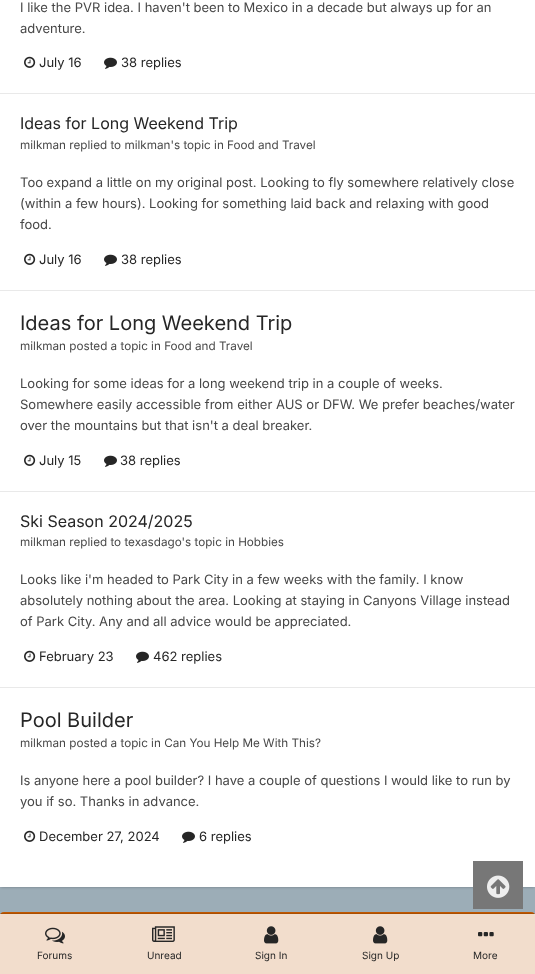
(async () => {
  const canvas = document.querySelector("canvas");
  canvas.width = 535;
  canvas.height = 974;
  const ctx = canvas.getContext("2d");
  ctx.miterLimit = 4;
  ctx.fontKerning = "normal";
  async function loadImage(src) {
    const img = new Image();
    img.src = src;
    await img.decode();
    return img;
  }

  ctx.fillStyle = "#9cadb7";
  ctx.fillRect(0, 0, 535, 974);
  ctx.fillStyle = "rgba(0, 0, 0, 0.3)";
  ctx.filter = "blur(1.5px)";
  ctx.beginPath();
  ctx.rect(1, -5, 533, 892);
  ctx.fill();
  ctx.filter = "none";
  ctx.fillStyle = "#ffffff";
  ctx.fillRect(0, 0, 535, 887);
  ctx.fillStyle = "#e9e9e9";
  ctx.fillRect(0, 93, 535, 1);
  ctx.drawImage(await loadImage("img/1.png"), 24, 56, 12, 12);
  ctx.drawImage(await loadImage("img/2.png"), 104, 57, 13, 12);
  ctx.fillRect(0, 290, 535, 1);
  ctx.drawImage(await loadImage("img/1.png"), 24, 253, 12, 12);
  ctx.drawImage(await loadImage("img/2.png"), 104, 254, 13, 12);
  ctx.fillRect(0, 491, 535, 1);
  ctx.drawImage(await loadImage("img/1.png"), 24, 454, 12, 12);
  ctx.drawImage(await loadImage("img/2.png"), 104, 455, 13, 12);
  ctx.fillRect(0, 687, 535, 1);
  ctx.drawImage(await loadImage("img/1.png"), 24, 650, 12, 12);
  ctx.drawImage(await loadImage("img/2.png"), 136, 651, 13, 12);
  ctx.drawImage(await loadImage("img/1.png"), 24, 830, 12, 12);
  ctx.drawImage(await loadImage("img/2.png"), 182, 831, 13, 12);
  ctx.fillStyle = "#bf5700";
  ctx.beginPath();
  ctx.roundRect(0, 912, 535, 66, 4);
  ctx.fill();
  ctx.fillStyle = "#777777";
  ctx.fillRect(473, 861, 50, 48);
  ctx.drawImage(await loadImage("img/3.png"), 487, 875, 23, 23);
  ctx.fillStyle = "rgba(0, 0, 0, 0.1)";
  ctx.fillRect(0, 913, 535, 1);
  ctx.fillStyle = "rgba(255, 255, 255, 0.8)";
  ctx.fillRect(0, 914, 535, 60);
  ctx.drawImage(await loadImage("img/4.png"), 45, 927, 20, 17);
  ctx.drawImage(await loadImage("img/5.png"), 152, 926, 23, 16);
  ctx.drawImage(await loadImage("img/6.png"), 264, 926, 15, 18);
  ctx.drawImage(await loadImage("img/6.png"), 373, 926, 15, 18);
  ctx.drawImage(await loadImage("img/7.png"), 478, 932, 16, 5);
  ctx.font = "13px Inter";
  ctx.fillStyle = "#474747";
  ctx.fillText("I like the PVR idea. I haven't been to Mexico in a decade but always up for an", 20, 12);
  ctx.fillText("adventure.", 20, 33);
  ctx.fillStyle = "#262626";
  ctx.fillText("July 16", 39, 67);
  ctx.fillText("38 replies", 121, 67);
  ctx.font = "16px Inter";
  ctx.fillText("Ideas for Long Weekend Trip", 20, 129);
  ctx.font = "11.7px Inter";
  ctx.fillStyle = "#474747";
  ctx.fillText("milkman replied to milkman's topic in Food and Travel", 20, 149);
  ctx.font = "13px Inter";
  for (const [text, x, y] of [
    ["Too expand a little on my original post. Looking to fly somewhere relatively close", 20, 187],
    ["(within a few hours). Looking for something laid back and relaxing with good", 20, 208],
    ["food.", 20, 229],
  ]) {
    ctx.fillText(text, x, y);
  }
  ctx.fillStyle = "#262626";
  ctx.fillText("July 16", 39, 264);
  ctx.fillText("38 replies", 121, 264);
  ctx.font = "20px Inter";
  ctx.fillText("Ideas for Long Weekend Trip", 20, 330);
  ctx.font = "11.7px Inter";
  ctx.fillStyle = "#474747";
  ctx.fillText("milkman posted a topic in Food and Travel", 20, 350);
  ctx.font = "13px Inter";
  for (const [text, x, y] of [
    ["Looking for some ideas for a long weekend trip in a couple of weeks.", 20, 388],
    ["Somewhere easily accessible from either AUS or DFW. We prefer beaches/water", 20, 409],
    ["over the mountains but that isn't a deal breaker.", 20, 430],
  ]) {
    ctx.fillText(text, x, y);
  }
  ctx.fillStyle = "#262626";
  ctx.fillText("July 15", 39, 465);
  ctx.fillText("38 replies", 120, 465);
  ctx.font = "16px Inter";
  ctx.fillText("Ski Season 2024/2025", 20, 527);
  ctx.font = "11.7px Inter";
  ctx.fillStyle = "#474747";
  ctx.fillText("milkman replied to texasdago's topic in Hobbies", 20, 546);
  ctx.font = "13px Inter";
  for (const [text, x, y] of [
    ["Looks like i'm headed to Park City in a few weeks with the family. I know", 20, 584],
    ["absolutely nothing about the area. Looking at staying in Canyons Village instead", 20, 605],
    ["of Park City. Any and all advice would be appreciated.", 20, 626],
  ]) {
    ctx.fillText(text, x, y);
  }
  ctx.fillStyle = "#262626";
  ctx.fillText("February 23", 39, 661);
  ctx.fillText("462 replies", 153, 661);
  ctx.font = "20px Inter";
  ctx.fillText("Pool Builder", 20, 727);
  ctx.font = "11.7px Inter";
  ctx.fillStyle = "#474747";
  ctx.fillText("milkman posted a topic in Can You Help Me With This?", 20, 747);
  ctx.font = "13px Inter";
  ctx.fillText("Is anyone here a pool builder? I have a couple of questions I would like to run by", 20, 785);
  ctx.fillText("you if so. Thanks in advance.", 20, 806);
  ctx.fillStyle = "#262626";
  ctx.fillText("December 27, 2024", 39, 841);
  ctx.fillText("6 replies", 199, 841);
  ctx.font = "10px Inter";
  for (const [text, x, y] of [
    ["Forums", 37, 959],
    ["Unread", 147, 959],
    ["Sign In", 255, 959],
    ["Sign Up", 362, 959],
    ["More", 473, 959],
  ]) {
    ctx.fillText(text, x, y);
  }
})();
